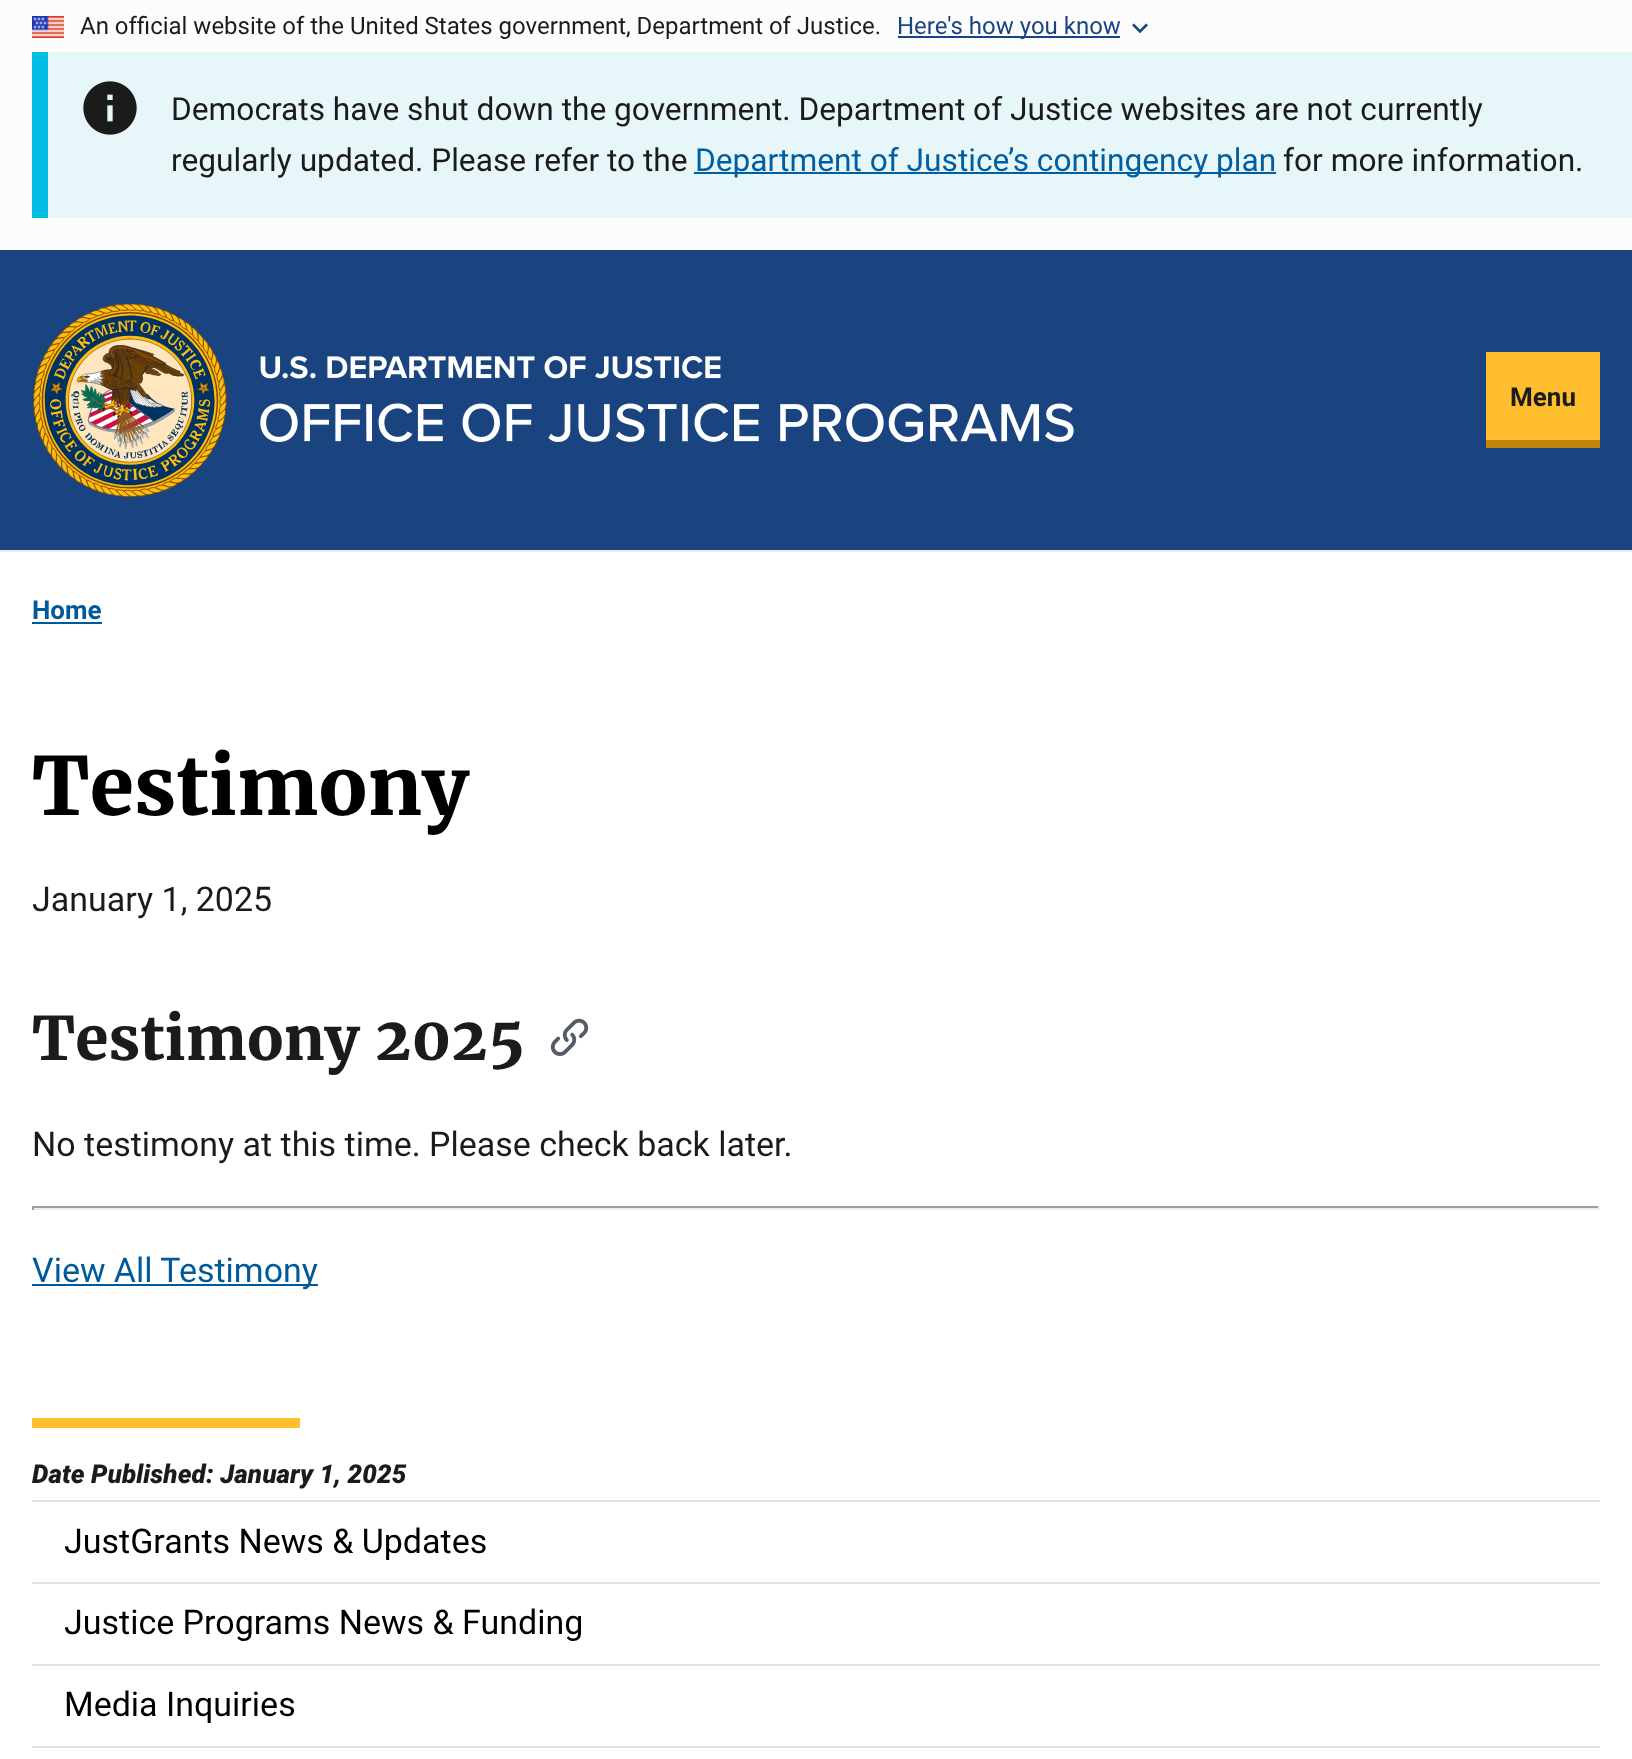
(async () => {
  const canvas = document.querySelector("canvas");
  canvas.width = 1632;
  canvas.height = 1759;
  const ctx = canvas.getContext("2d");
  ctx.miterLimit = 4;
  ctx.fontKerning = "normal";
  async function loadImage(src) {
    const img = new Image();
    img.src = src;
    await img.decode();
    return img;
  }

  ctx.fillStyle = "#ffffff";
  ctx.fillRect(0, 0, 1632, 1759);
  ctx.fillStyle = "#fcfcfc";
  ctx.fillRect(0, 0, 1632, 250);
  ctx.drawImage(await loadImage("img/1.png"), 32, 16, 32, 22);
  ctx.fillStyle = "#1a4480";
  ctx.fillRect(898, 36, 222, 2);
  ctx.drawImage(await loadImage("img/2.png"), 1132, 23, 16, 11);
  ctx.fillStyle = "#e7f6f8";
  ctx.fillRect(48, 52, 1584, 166);
  ctx.fillStyle = "#00bde3";
  ctx.fillRect(32, 52, 16, 166);
  ctx.drawImage(await loadImage("img/3.png"), 83, 81, 54, 54);
  for (const [x, y, w, h, color] of [
    [694, 172, 582, 2, "#005ea2"],
    [0, 250, 1632, 300, "#1a4480"],
    [0, 550, 1632, 2, "#edeff0"],
  ]) {
    ctx.fillStyle = color;
    ctx.fillRect(x, y, w, h);
  }
  ctx.drawImage(await loadImage("img/4.png"), 33, 303, 194, 195);
  ctx.drawImage(await loadImage("img/5.png"), 260, 356, 814, 86);
  for (const [x, y, w, h, color] of [
    [1486, 352, 114, 88, "#ffbe2e"],
    [1486, 440, 114, 8, "#c2850c"],
    [32, 622, 70, 2, "#005999"],
  ]) {
    ctx.fillStyle = color;
    ctx.fillRect(x, y, w, h);
  }
  ctx.drawImage(await loadImage("img/6.png"), 550, 1018, 39, 38);
  for (const [x, y, w, h, color] of [
    [32, 1206, 1568, 2, "#9f9f9f"],
    [1598, 1206, 2, 4, "#eeeeee"],
    [32, 1208, 1568, 2, "#eeeeee"],
    [32, 1206, 2, 4, "#9f9f9f"],
    [32, 1284, 286, 2, "#005999"],
    [32, 1418, 268, 10, "#ffbe2e"],
    [32, 1500, 1568, 2, "#dfe1e2"],
    [32, 1582, 1568, 2, "#dfe1e2"],
    [32, 1664, 1568, 2, "#dfe1e2"],
    [32, 1746, 1568, 2, "#dfe1e2"],
  ]) {
    ctx.fillStyle = color;
    ctx.fillRect(x, y, w, h);
  }
  ctx.font = "24px Roboto";
  ctx.fillStyle = "#1b1b1b";
  ctx.fillText("An official website of the United States government, Department of Justice.", 80, 34);
  ctx.fillStyle = "#1a4480";
  ctx.fillText("Here's how you know", 897, 34);
  ctx.font = "31.7px Roboto";
  ctx.fillStyle = "#1b1b1b";
  ctx.fillText("Democrats have shut down the government. Department of Justice websites are not currently", 171, 120);
  ctx.fillText("regularly updated. Please refer to the", 171, 171);
  ctx.fillStyle = "#005ea2";
  ctx.fillText("Department of Justice’s contingency plan", 695, 171);
  ctx.fillStyle = "#1b1b1b";
  ctx.fillText("for more information.", 1283, 171);
  ctx.font = "bold 26px Roboto";
  ctx.fillText("Menu", 1510, 406);
  ctx.fillStyle = "#005999";
  ctx.fillText("Home", 32, 619);
  ctx.font = "bold 80px Merriweather";
  ctx.fillStyle = "#000000";
  ctx.fillText("Testimony", 32, 815);
  ctx.font = "34px Roboto";
  ctx.fillStyle = "#1b1b1b";
  ctx.fillText("January 1, 2025", 32, 911);
  ctx.font = "bold 60px Merriweather";
  ctx.fillText("Testimony 2025", 32, 1060);
  ctx.font = "34px Roboto";
  ctx.fillText("No testimony at this time. Please check back later.", 32, 1156);
  ctx.fillStyle = "#005999";
  ctx.fillText("View All Testimony", 32, 1282);
  ctx.font = "italic 900 26px Roboto";
  ctx.fillStyle = "#1b1b1b";
  ctx.fillText("Date Published: January 1, 2025", 32, 1483);
  ctx.font = "34px Roboto";
  ctx.fillStyle = "#000000";
  for (const [text, x, y] of [
    ["JustGrants News & Updates", 64, 1553],
    ["Justice Programs News & Funding", 64, 1634],
    ["Media Inquiries", 64, 1716],
  ]) {
    ctx.fillText(text, x, y);
  }
})();
